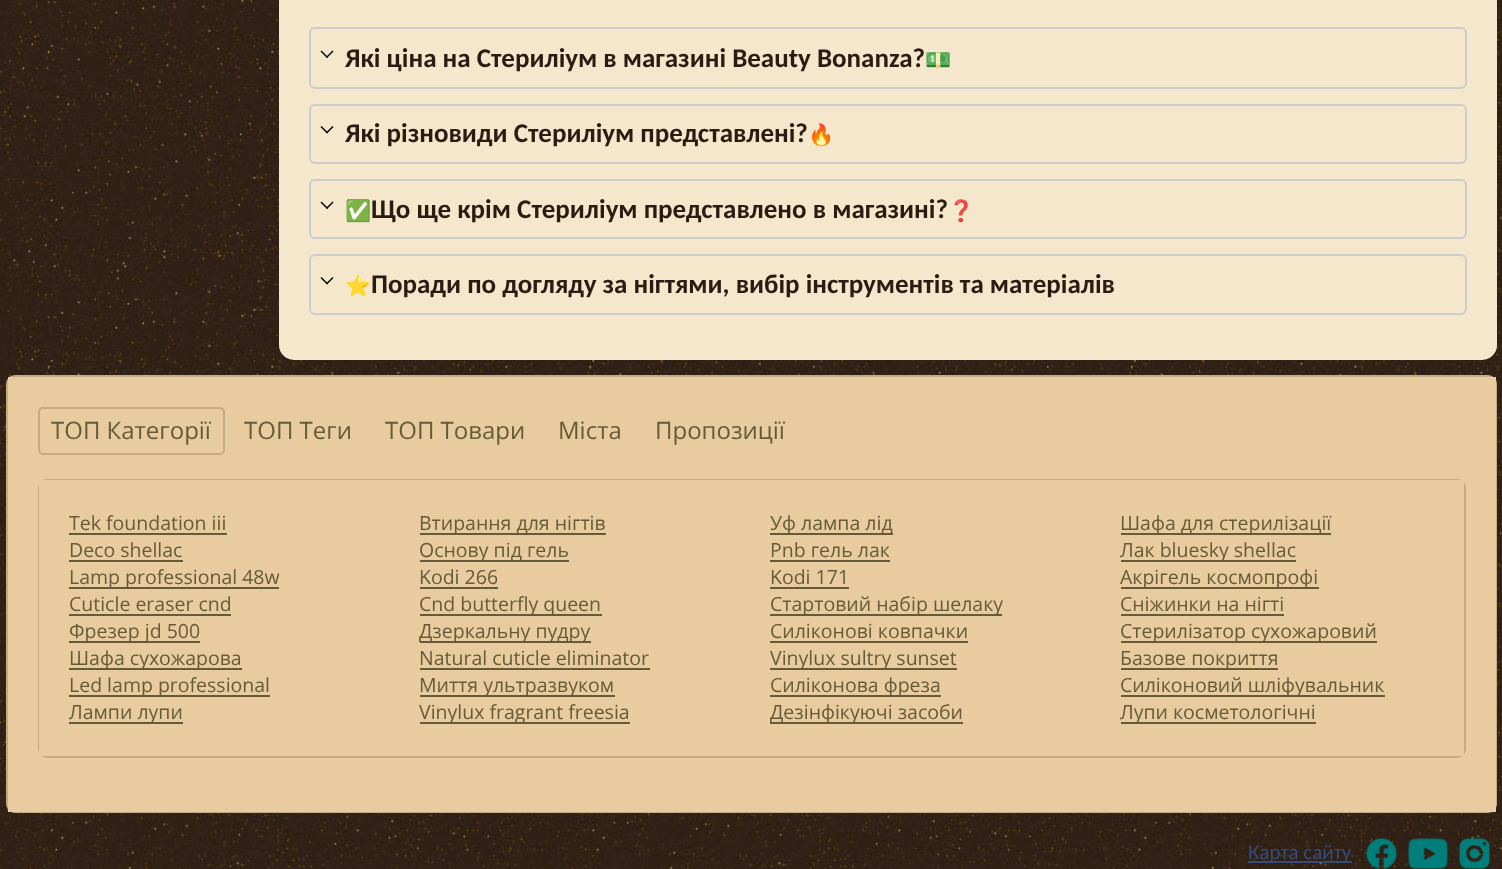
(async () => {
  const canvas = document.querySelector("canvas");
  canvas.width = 1502;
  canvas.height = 869;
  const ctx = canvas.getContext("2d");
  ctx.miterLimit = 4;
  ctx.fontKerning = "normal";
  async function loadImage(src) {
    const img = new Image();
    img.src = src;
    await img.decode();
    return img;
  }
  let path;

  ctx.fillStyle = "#ffffff";
  ctx.fillRect(0, 0, 1502, 869);
  ctx.drawImage(await loadImage("img/1.png"), 0, 0, 1502, 869);
  ctx.fillStyle = "#f4e7cb";
  ctx.beginPath();
  ctx.roundRect(279, -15, 1218, 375, 15);
  ctx.fill();
  ctx.beginPath();
  ctx.roundRect(310, 28, 1156, 60, 5);
  ctx.strokeStyle = "#cccccc";
  ctx.lineWidth = 2;
  ctx.stroke();
  ctx.fillStyle = "#000000";
  path = new Path2D("M332.5 50.5L333.5 51.5L327 58L326 57Z");
  ctx.fill(path);
  path = new Path2D("M321.5 50.5L328 57L327 58L320.5 51.5Z");
  ctx.fill(path);
  ctx.beginPath();
  ctx.roundRect(310, 105, 1156, 58, 5);
  ctx.stroke();
  path = new Path2D("M332.5 126L333.5 127L327 133.5L326 132.5Z");
  ctx.fill(path);
  path = new Path2D("M321.5 126L328 132.5L327 133.5L320.5 127Z");
  ctx.fill(path);
  ctx.beginPath();
  ctx.roundRect(310, 180, 1156, 58, 5);
  ctx.stroke();
  path = new Path2D("M332.5 201.5L333.5 202.5L327 209L326 208Z");
  ctx.fill(path);
  path = new Path2D("M321.5 201.5L328 208L327 209L320.5 202.5Z");
  ctx.fill(path);
  ctx.beginPath();
  ctx.roundRect(310, 255, 1156, 59, 5);
  ctx.stroke();
  path = new Path2D("M332.5 277L333.5 278L327 284.5L326 283.5Z");
  ctx.fill(path);
  path = new Path2D("M321.5 277L328 283.5L327 284.5L320.5 278Z");
  ctx.fill(path);
  ctx.beginPath();
  ctx.roundRect(7, 376, 1489, 436, 8);
  ctx.strokeStyle = "#c3ab86";
  ctx.stroke();
  ctx.fillStyle = "#e8cca0";
  ctx.fillRect(8, 377, 1488, 435);
  ctx.beginPath();
  ctx.roundRect(39, 408, 185, 46, 4);
  ctx.stroke();
  ctx.beginPath();
  ctx.roundRect(39, 480, 1426, 277, 8);
  ctx.stroke();
  for (const [x, y, w, h, color] of [
    [39, 480, 1425, 276, "#e8cca0"],
    [69, 533, 158, 2, "#665a37"],
    [69, 560, 114, 2, "#665a37"],
    [69, 587, 210, 2, "#665a37"],
    [69, 614, 162, 2, "#665a37"],
    [69, 641, 131, 2, "#665a37"],
    [69, 668, 173, 2, "#665a37"],
    [69, 695, 201, 2, "#665a37"],
    [69, 722, 114, 2, "#665a37"],
    [420, 533, 186, 2, "#665a37"],
    [420, 560, 149, 2, "#665a37"],
    [420, 587, 78, 2, "#665a37"],
    [420, 614, 182, 2, "#665a37"],
    [420, 641, 171, 2, "#665a37"],
    [420, 668, 230, 2, "#665a37"],
    [420, 695, 195, 2, "#665a37"],
    [420, 722, 210, 2, "#665a37"],
    [770, 533, 123, 2, "#665a37"],
    [770, 560, 120, 2, "#665a37"],
    [770, 587, 79, 2, "#665a37"],
    [770, 614, 232, 2, "#665a37"],
    [770, 641, 198, 2, "#665a37"],
    [770, 668, 187, 2, "#665a37"],
    [770, 695, 171, 2, "#665a37"],
    [770, 722, 193, 2, "#665a37"],
    [1121, 533, 210, 2, "#665a37"],
    [1121, 560, 175, 2, "#665a37"],
    [1121, 587, 198, 2, "#665a37"],
    [1121, 614, 163, 2, "#665a37"],
    [1121, 641, 256, 2, "#665a37"],
    [1121, 668, 157, 2, "#665a37"],
    [1121, 695, 264, 2, "#665a37"],
    [1121, 722, 195, 2, "#665a37"],
    [1248, 861, 104, 2, "#344c78"],
  ]) {
    ctx.fillStyle = color;
    ctx.fillRect(x, y, w, h);
  }
  ctx.drawImage(await loadImage("img/2.png"), 1366, 838, 31, 31);
  ctx.drawImage(await loadImage("img/3.png"), 1408, 838, 40, 31);
  ctx.drawImage(await loadImage("img/4.png"), 1459, 838, 31, 31);
  ctx.font = "bold 27px Carlito";
  ctx.fillStyle = "#2a1c13";
  ctx.fillText("Які ціна на Стериліум в магазині Beauty Bonanza?", 345, 67);
  ctx.font = "bold 21px Noto Color Emoji";
  ctx.fillText("💵", 925, 67);
  ctx.font = "bold 27px Carlito";
  ctx.fillText("Які різновиди Стериліум представлені?", 345, 142);
  ctx.font = "bold 21px Noto Color Emoji";
  ctx.fillText("🔥", 808, 142);
  ctx.fillText("✅", 345, 218);
  ctx.font = "bold 27px Carlito";
  ctx.fillText("Що ще крім Стериліум представлено в магазині?", 371, 218);
  ctx.font = "bold 21px Noto Color Emoji";
  ctx.fillText("❓", 948, 218);
  ctx.fillText("⭐", 345, 293);
  ctx.font = "bold 27px Carlito";
  ctx.fillText("Поради по догляду за нігтями, вибір інструментів та матеріалів", 371, 293);
  ctx.font = "24px Open Sans";
  ctx.fillStyle = "#665a37";
  for (const [text, x, y] of [
    ["ТОП Категорії", 51, 439],
    ["ТОП Теги", 244, 439],
    ["ТОП Товари", 385, 439],
    ["Міста", 558, 439],
    ["Пропозиції", 655, 439],
  ]) {
    ctx.fillText(text, x, y);
  }
  ctx.font = "19.5px Open Sans";
  for (const [text, x, y] of [
    ["Tek foundation iii", 69, 530],
    ["Deco shellac", 69, 557],
    ["Lamp professional 48w", 69, 584],
    ["Cuticle eraser cnd", 69, 611],
    ["Фрезер jd 500", 69, 638],
    ["Шафа сухожарова", 69, 665],
    ["Led lamp professional", 69, 692],
    ["Лампи лупи", 69, 719],
    ["Втирання для нігтів", 419, 530],
    ["Основу під гель", 419, 557],
    ["Kodi 266", 419, 584],
    ["Cnd butterfly queen", 419, 611],
    ["Дзеркальну пудру", 419, 638],
    ["Natural cuticle eliminator", 419, 665],
    ["Миття ультразвуком", 419, 692],
    ["Vinylux fragrant freesia", 419, 719],
    ["Уф лампа лід", 770, 530],
    ["Pnb гель лак", 770, 557],
    ["Kodi 171", 770, 584],
    ["Стартовий набір шелаку", 770, 611],
    ["Силіконові ковпачки", 770, 638],
    ["Vinylux sultry sunset", 770, 665],
    ["Силіконова фреза", 770, 692],
    ["Дезінфікуючі засоби", 770, 719],
    ["Шафа для стерилізації", 1120, 530],
    ["Лак bluesky shellac", 1120, 557],
    ["Акрігель космопрофі", 1120, 584],
    ["Сніжинки на нігті", 1120, 611],
    ["Стерилізатор сухожаровий", 1120, 638],
    ["Базове покриття", 1120, 665],
    ["Силіконовий шліфувальник", 1120, 692],
    ["Лупи косметологічні", 1120, 719],
  ]) {
    ctx.fillText(text, x, y);
  }
  ctx.font = "21px Carlito";
  ctx.fillStyle = "#344c78";
  ctx.fillText("Карта сайту", 1248, 859);
})();
